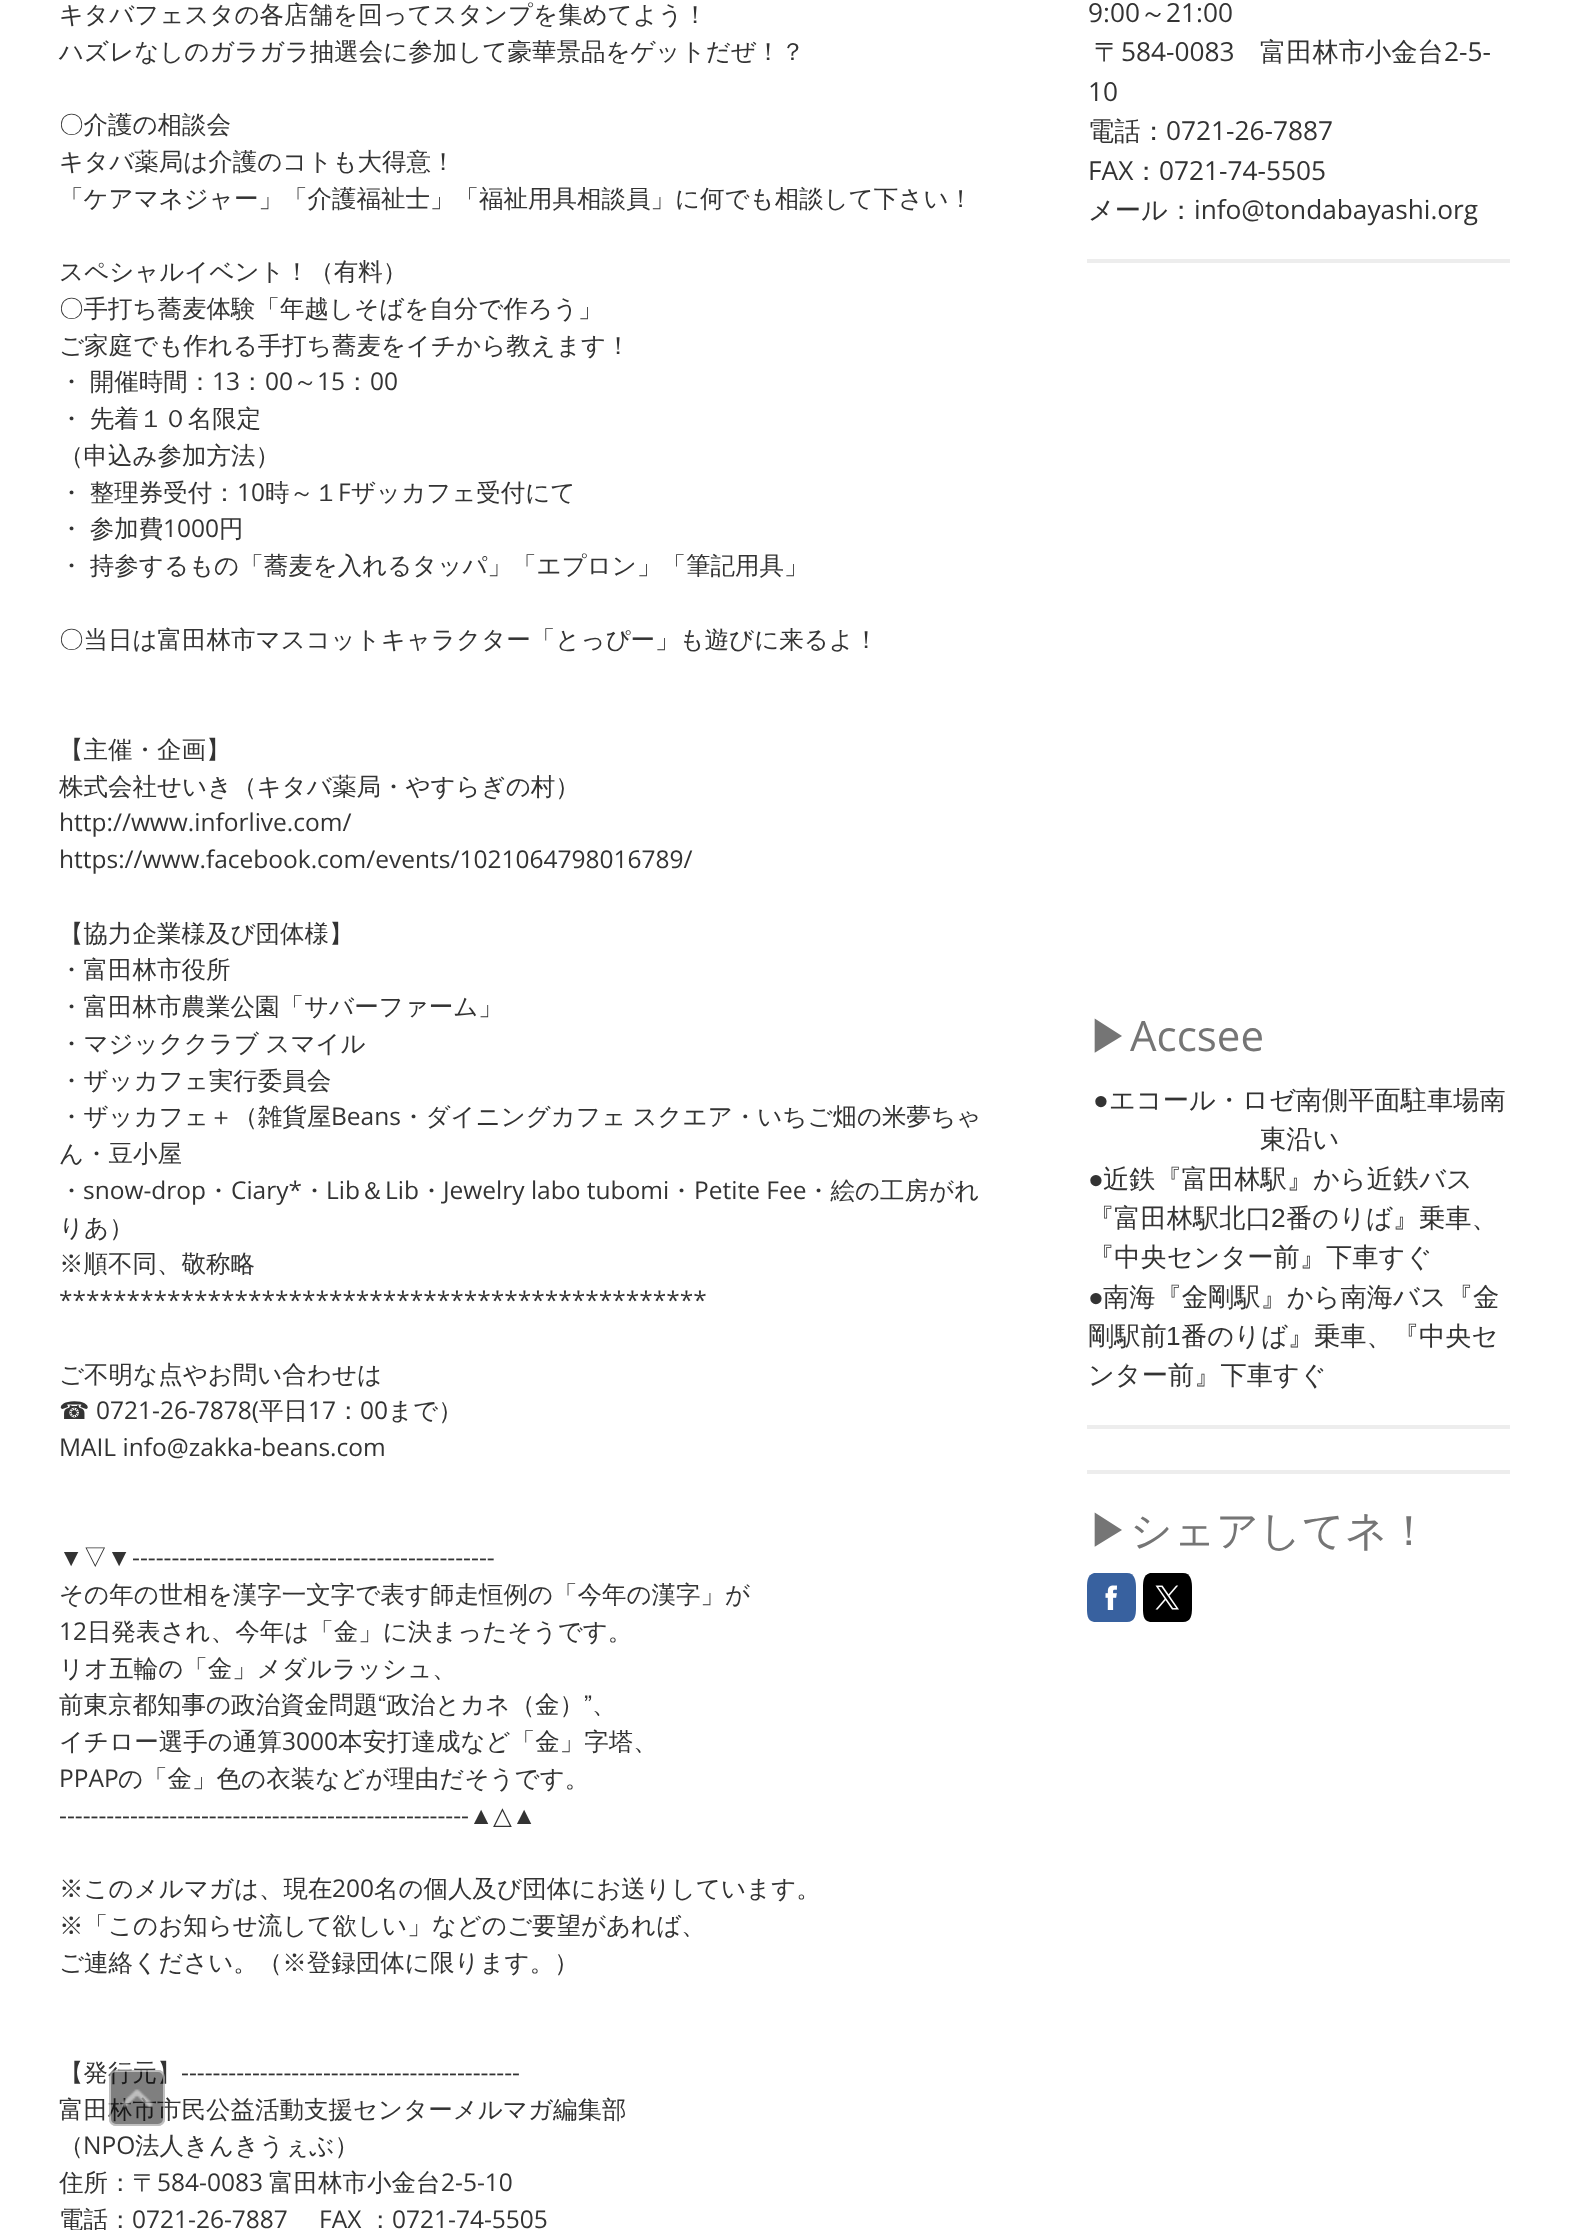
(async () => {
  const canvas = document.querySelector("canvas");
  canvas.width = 1569;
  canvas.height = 2230;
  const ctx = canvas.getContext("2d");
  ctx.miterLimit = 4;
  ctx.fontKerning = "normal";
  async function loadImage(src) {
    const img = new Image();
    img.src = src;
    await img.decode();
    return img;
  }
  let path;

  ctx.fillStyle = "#ffffff";
  ctx.fillRect(0, 0, 1569, 2230);
  for (const [x, y, w, h, color] of [
    [1087, 259, 423, 4, "#ededed"],
    [1087, 1425, 423, 4, "#ededed"],
    [1087, 1470, 423, 4, "#ededed"],
  ]) {
    ctx.fillStyle = color;
    ctx.fillRect(x, y, w, h);
  }
  ctx.fillStyle = "#38619f";
  path = new Path2D("M1127 1622H1094C1087 1621 1087 1614 1087 1608V1588C1087 1582 1087 1575 1094 1573H1127C1135 1573 1136 1581 1136 1588V1608C1136 1615 1135 1622 1127 1622Z");
  ctx.fill(path);
  ctx.drawImage(await loadImage("img/1.png"), 1105, 1585, 12, 25);
  ctx.fillStyle = "#000000";
  path = new Path2D("M1183 1622H1150C1143 1621 1143 1614 1143 1608V1588C1143 1582 1143 1575 1150 1573H1183C1191 1573 1192 1581 1192 1588V1608C1192 1615 1191 1622 1183 1622Z");
  ctx.fill(path);
  ctx.drawImage(await loadImage("img/2.png"), 1155, 1585, 24, 25);
  ctx.font = "500 24.5px WenQuanYi Zen Hei";
  ctx.fillStyle = "#333333";
  for (const [text, x, y] of [
    ["キタバフェスタの各店舗を回ってスタンプを集めてよう！", 59, 23],
    ["ハズレなしのガラガラ抽選会に参加して豪華景品をゲットだぜ！？", 59, 60],
    ["〇介護の相談会", 59, 133],
    ["キタバ薬局は介護のコトも大得意！", 59, 170],
    ["「ケアマネジャー」「介護福祉士」「福祉用具相談員」に何でも相談して下さい！", 59, 207],
    ["スペシャルイベント！（有料）", 59, 280],
    ["〇手打ち蕎麦体験「年越しそばを自分で作ろう」", 59, 317],
    ["ご家庭でも作れる手打ち蕎麦をイチから教えます！", 59, 354],
  ]) {
    ctx.fillText(text, x, y);
  }
  ctx.wordSpacing = "-1px";
  ctx.fillText("・ 開催時間：", 59, 390);
  ctx.wordSpacing = "0px";
  ctx.font = "24.5px Open Sans";
  ctx.fillText("13", 212, 390);
  ctx.font = "500 24.5px WenQuanYi Zen Hei";
  ctx.fillText("：", 240, 390);
  ctx.font = "24.5px Open Sans";
  ctx.fillText("00", 265, 390);
  ctx.font = "500 24.5px WenQuanYi Zen Hei";
  ctx.fillText("～", 293, 390);
  ctx.font = "24.5px Open Sans";
  ctx.fillText("15", 317, 390);
  ctx.font = "500 24.5px WenQuanYi Zen Hei";
  ctx.fillText("：", 345, 390);
  ctx.font = "24.5px Open Sans";
  ctx.fillText("00", 370, 390);
  ctx.wordSpacing = "-1px";
  ctx.font = "500 24.5px WenQuanYi Zen Hei";
  ctx.fillText("・ 先着１０名限定", 59, 427);
  ctx.wordSpacing = "0px";
  ctx.fillText("（申込み参加方法）", 59, 464);
  ctx.wordSpacing = "-1px";
  ctx.fillText("・ 整理券受付：", 59, 501);
  ctx.wordSpacing = "0px";
  ctx.font = "24.5px Open Sans";
  ctx.fillText("10", 237, 501);
  ctx.font = "500 24.5px WenQuanYi Zen Hei";
  ctx.fillText("時～１", 265, 501);
  ctx.font = "24.5px Open Sans";
  ctx.fillText("F", 338, 501);
  ctx.font = "500 24.5px WenQuanYi Zen Hei";
  ctx.fillText("ザッカフェ受付にて", 351, 501);
  ctx.wordSpacing = "-1px";
  ctx.fillText("・ 参加費", 59, 537);
  ctx.wordSpacing = "0px";
  ctx.font = "24.5px Open Sans";
  ctx.fillText("1000", 163, 537);
  ctx.font = "500 24.5px WenQuanYi Zen Hei";
  ctx.fillText("円", 219, 537);
  ctx.wordSpacing = "-1px";
  ctx.fillText("・ 持参するもの「蕎麦を入れるタッパ」「エプロン」「筆記用具」", 59, 574);
  ctx.wordSpacing = "0px";
  for (const [text, x, y] of [
    ["〇当日は富田林市マスコットキャラクター「とっぴー」も遊びに来るよ！", 59, 648],
    ["【主催・企画】", 59, 758],
    ["株式会社せいき（キタバ薬局・やすらぎの村）", 59, 795],
  ]) {
    ctx.fillText(text, x, y);
  }
  ctx.font = "24.5px Open Sans";
  ctx.fillText("http://www.inforlive.com/", 59, 831);
  ctx.fillText("https://www.facebook.com/events/1021064798016789/", 59, 868);
  ctx.font = "500 24.5px WenQuanYi Zen Hei";
  for (const [text, x, y] of [
    ["【協力企業様及び団体様】", 59, 942],
    ["・富田林市役所", 59, 978],
    ["・富田林市農業公園「サバーファーム」", 59, 1015],
  ]) {
    ctx.fillText(text, x, y);
  }
  ctx.wordSpacing = "-1px";
  ctx.fillText("・マジッククラブ スマイル", 59, 1052);
  ctx.wordSpacing = "0px";
  ctx.fillText("・ザッカフェ実行委員会", 59, 1089);
  ctx.fillText("・ザッカフェ＋（雑貨屋", 59, 1125);
  ctx.font = "24.5px Open Sans";
  ctx.fillText("Beans", 331, 1125);
  ctx.wordSpacing = "-1px";
  ctx.font = "500 24.5px WenQuanYi Zen Hei";
  ctx.fillText("・ダイニングカフェ スクエア・いちご畑の米夢ちゃ", 401, 1125);
  ctx.wordSpacing = "0px";
  ctx.fillText("ん・豆小屋", 59, 1162);
  ctx.fillText("・", 59, 1199);
  ctx.font = "24.5px Open Sans";
  ctx.fillText("snow-drop", 83, 1199);
  ctx.font = "500 24.5px WenQuanYi Zen Hei";
  ctx.fillText("・", 206, 1199);
  ctx.font = "24.5px Open Sans";
  ctx.fillText("Ciary*", 231, 1199);
  ctx.font = "500 24.5px WenQuanYi Zen Hei";
  ctx.fillText("・", 302, 1199);
  ctx.font = "24.5px Open Sans";
  ctx.fillText("Lib", 326, 1199);
  ctx.font = "500 24.5px WenQuanYi Zen Hei";
  ctx.fillText("＆", 360, 1199);
  ctx.font = "24.5px Open Sans";
  ctx.fillText("Lib", 385, 1199);
  ctx.font = "500 24.5px WenQuanYi Zen Hei";
  ctx.fillText("・", 419, 1199);
  ctx.font = "24.5px Open Sans";
  ctx.fillText("Jewelry labo tubomi", 443, 1199);
  ctx.font = "500 24.5px WenQuanYi Zen Hei";
  ctx.fillText("・", 669, 1199);
  ctx.font = "24.5px Open Sans";
  ctx.fillText("Petite Fee", 694, 1199);
  ctx.font = "500 24.5px WenQuanYi Zen Hei";
  for (const [text, x, y] of [
    ["・絵の工房がれ", 806, 1199],
    ["りあ）", 59, 1236],
    ["※順不同、敬称略", 59, 1272],
  ]) {
    ctx.fillText(text, x, y);
  }
  ctx.font = "24.5px Open Sans";
  ctx.fillText("************************************************", 59, 1309);
  ctx.font = "500 24.5px WenQuanYi Zen Hei";
  ctx.fillText("ご不明な点やお問い合わせは", 59, 1383);
  ctx.font = "24.5px DejaVu Sans";
  ctx.fillText("☎", 59, 1419);
  ctx.font = "24.5px Open Sans";
  ctx.fillText("0721-26-7878(", 96, 1419);
  ctx.font = "500 24.5px WenQuanYi Zen Hei";
  ctx.fillText("平日", 259, 1419);
  ctx.font = "24.5px Open Sans";
  ctx.fillText("17", 308, 1419);
  ctx.font = "500 24.5px WenQuanYi Zen Hei";
  ctx.fillText("：", 336, 1419);
  ctx.font = "24.5px Open Sans";
  ctx.fillText("00", 360, 1419);
  ctx.font = "500 24.5px WenQuanYi Zen Hei";
  ctx.fillText("まで）", 388, 1419);
  ctx.font = "24.5px Open Sans";
  ctx.fillText("MAIL info@zakka-beans.com", 59, 1456);
  ctx.font = "24.5px Liberation Sans";
  ctx.fillText("▼", 59, 1566);
  ctx.font = "500 24.5px WenQuanYi Zen Hei";
  ctx.fillText("▽", 83, 1566);
  ctx.font = "24.5px Liberation Sans";
  ctx.fillText("▼", 107, 1566);
  ctx.font = "24.5px Open Sans";
  ctx.fillText("----------------------------------------------", 132, 1566);
  ctx.font = "500 24.5px WenQuanYi Zen Hei";
  ctx.fillText("その年の世相を漢字一文字で表す師走恒例の「今年の漢字」が", 59, 1603);
  ctx.font = "24.5px Open Sans";
  ctx.fillText("12", 59, 1640);
  ctx.font = "500 24.5px WenQuanYi Zen Hei";
  for (const [text, x, y] of [
    ["日発表され、今年は「金」に決まったそうです。", 87, 1640],
    ["リオ五輪の「金」メダルラッシュ、", 59, 1677],
    ["前東京都知事の政治資金問題“政治とカネ（金）”、", 59, 1713],
    ["イチロー選手の通算", 59, 1750],
  ]) {
    ctx.fillText(text, x, y);
  }
  ctx.font = "24.5px Open Sans";
  ctx.fillText("3000", 282, 1750);
  ctx.font = "500 24.5px WenQuanYi Zen Hei";
  ctx.fillText("本安打達成など「金」字塔、", 338, 1750);
  ctx.font = "24.5px Open Sans";
  ctx.fillText("PPAP", 59, 1787);
  ctx.font = "500 24.5px WenQuanYi Zen Hei";
  ctx.fillText("の「金」色の衣装などが理由だそうです。", 118, 1787);
  ctx.font = "24.5px Open Sans";
  ctx.fillText("----------------------------------------------------", 59, 1824);
  ctx.font = "24.5px Liberation Sans";
  ctx.fillText("▲", 469, 1824);
  ctx.font = "24.5px DejaVu Sans";
  ctx.fillText("△", 493, 1824);
  ctx.font = "24.5px Liberation Sans";
  ctx.fillText("▲", 512, 1824);
  ctx.font = "500 24.5px WenQuanYi Zen Hei";
  ctx.fillText("※このメルマガは、現在", 59, 1897);
  ctx.font = "24.5px Open Sans";
  ctx.fillText("200", 332, 1897);
  ctx.font = "500 24.5px WenQuanYi Zen Hei";
  for (const [text, x, y] of [
    ["名の個人及び団体にお送りしています。", 374, 1897],
    ["※「このお知らせ流して欲しい」などのご要望があれば、", 59, 1934],
    ["ご連絡ください。（※登録団体に限ります。）", 59, 1971],
    ["【発行元】", 59, 2081],
  ]) {
    ctx.fillText(text, x, y);
  }
  ctx.font = "24.5px Open Sans";
  ctx.fillText("-------------------------------------------", 181, 2081);
  ctx.font = "500 24.5px WenQuanYi Zen Hei";
  ctx.fillText("富田林市市民公益活動支援センターメルマガ編集部", 59, 2118);
  ctx.fillText("（", 59, 2154);
  ctx.font = "24.5px Open Sans";
  ctx.fillText("NPO", 83, 2154);
  ctx.font = "500 24.5px WenQuanYi Zen Hei";
  ctx.fillText("法人きんきうぇぶ）", 135, 2154);
  ctx.fillText("住所：〒", 59, 2191);
  ctx.font = "24.5px Open Sans";
  ctx.fillText("584-0083", 157, 2191);
  ctx.font = "500 24.5px WenQuanYi Zen Hei";
  ctx.fillText("富田林市小金台", 269, 2191);
  ctx.font = "24.5px Open Sans";
  ctx.fillText("2-5-10", 441, 2191);
  ctx.font = "500 24.5px WenQuanYi Zen Hei";
  ctx.fillText("電話：", 59, 2228);
  ctx.font = "24.5px Open Sans";
  ctx.fillText("0721-26-7887", 132, 2228);
  ctx.fillText("FAX", 319, 2228);
  ctx.font = "500 24.5px WenQuanYi Zen Hei";
  ctx.fillText("：", 368, 2228);
  ctx.font = "24.5px Open Sans";
  ctx.fillText("0721-74-5505", 392, 2228);
  ctx.font = "26.25px Open Sans";
  ctx.fillText("9:00", 1088, 22);
  ctx.font = "500 26.25px WenQuanYi Zen Hei";
  ctx.fillText("～", 1140, 22);
  ctx.font = "26.25px Open Sans";
  ctx.fillText("21:00", 1166, 22);
  ctx.font = "500 26.25px WenQuanYi Zen Hei";
  ctx.fillText("〒", 1094, 61);
  ctx.font = "26.25px Open Sans";
  ctx.fillText("584-0083", 1121, 61);
  ctx.font = "500 26.25px WenQuanYi Zen Hei";
  ctx.fillText("富田林市小金台", 1260, 61);
  ctx.font = "26.25px Open Sans";
  ctx.fillText("2-5-", 1444, 61);
  ctx.fillText("10", 1088, 101);
  ctx.font = "500 26.25px WenQuanYi Zen Hei";
  ctx.fillText("電話：", 1088, 140);
  ctx.font = "26.25px Open Sans";
  ctx.fillText("0721-26-7887", 1166, 140);
  ctx.fillText("FAX", 1088, 180);
  ctx.font = "500 26.25px WenQuanYi Zen Hei";
  ctx.fillText("：", 1133, 180);
  ctx.font = "26.25px Open Sans";
  ctx.fillText("0721-74-5505", 1159, 180);
  ctx.font = "500 26.25px WenQuanYi Zen Hei";
  ctx.fillText("メール：", 1088, 219);
  ctx.font = "26.25px Open Sans";
  ctx.fillText("info@tondabayashi.org", 1194, 219);
  ctx.font = "500 42px WenQuanYi Zen Hei";
  ctx.fillStyle = "#757575";
  ctx.fillText("▶", 1088, 1051);
  ctx.font = "42px Open Sans";
  ctx.fillText("Accsee", 1130, 1051);
  ctx.font = "26.25px Liberation Sans";
  ctx.fillStyle = "#333333";
  ctx.fillText("●", 1093, 1109);
  ctx.font = "500 26.25px WenQuanYi Zen Hei";
  ctx.fillText("エコール・ロゼ南側平面駐車場南", 1109, 1109);
  ctx.fillText("東沿い", 1260, 1148);
  ctx.font = "26.25px Liberation Sans";
  ctx.fillText("●", 1088, 1188);
  ctx.font = "500 26.25px WenQuanYi Zen Hei";
  ctx.fillText("近鉄『富田林駅』から近鉄バス", 1103, 1188);
  ctx.fillText("『富田林駅北口", 1088, 1227);
  ctx.font = "26.25px Liberation Sans";
  ctx.fillText("2", 1271, 1227);
  ctx.font = "500 26.25px WenQuanYi Zen Hei";
  ctx.fillText("番のりば』乗車、", 1286, 1227);
  ctx.fillText("『中央センター前』下車すぐ", 1088, 1266);
  ctx.font = "26.25px Liberation Sans";
  ctx.fillText("●", 1088, 1306);
  ctx.font = "500 26.25px WenQuanYi Zen Hei";
  ctx.fillText("南海『金剛駅』から南海バス『金", 1103, 1306);
  ctx.fillText("剛駅前", 1088, 1345);
  ctx.font = "26.25px Liberation Sans";
  ctx.fillText("1", 1166, 1345);
  ctx.font = "500 26.25px WenQuanYi Zen Hei";
  ctx.fillText("番のりば』乗車、『中央セ", 1181, 1345);
  ctx.fillText("ンター前』下車すぐ", 1088, 1384);
  ctx.font = "500 42px WenQuanYi Zen Hei";
  ctx.fillStyle = "#757575";
  ctx.fillText("▶シェアしてネ！", 1088, 1545);
  ctx.fillStyle = "rgba(0, 0, 0, 0.5)";
  ctx.beginPath();
  ctx.roundRect(109, 2070, 56, 56, 7);
  ctx.fill();
  ctx.beginPath();
  ctx.roundRect(110, 2071, 54, 54, 6);
  ctx.strokeStyle = "rgba(255, 255, 255, 0.5)";
  ctx.lineWidth = 2;
  ctx.stroke();
  ctx.drawImage(await loadImage("img/3.png"), 122, 2089, 31, 19);
})();
